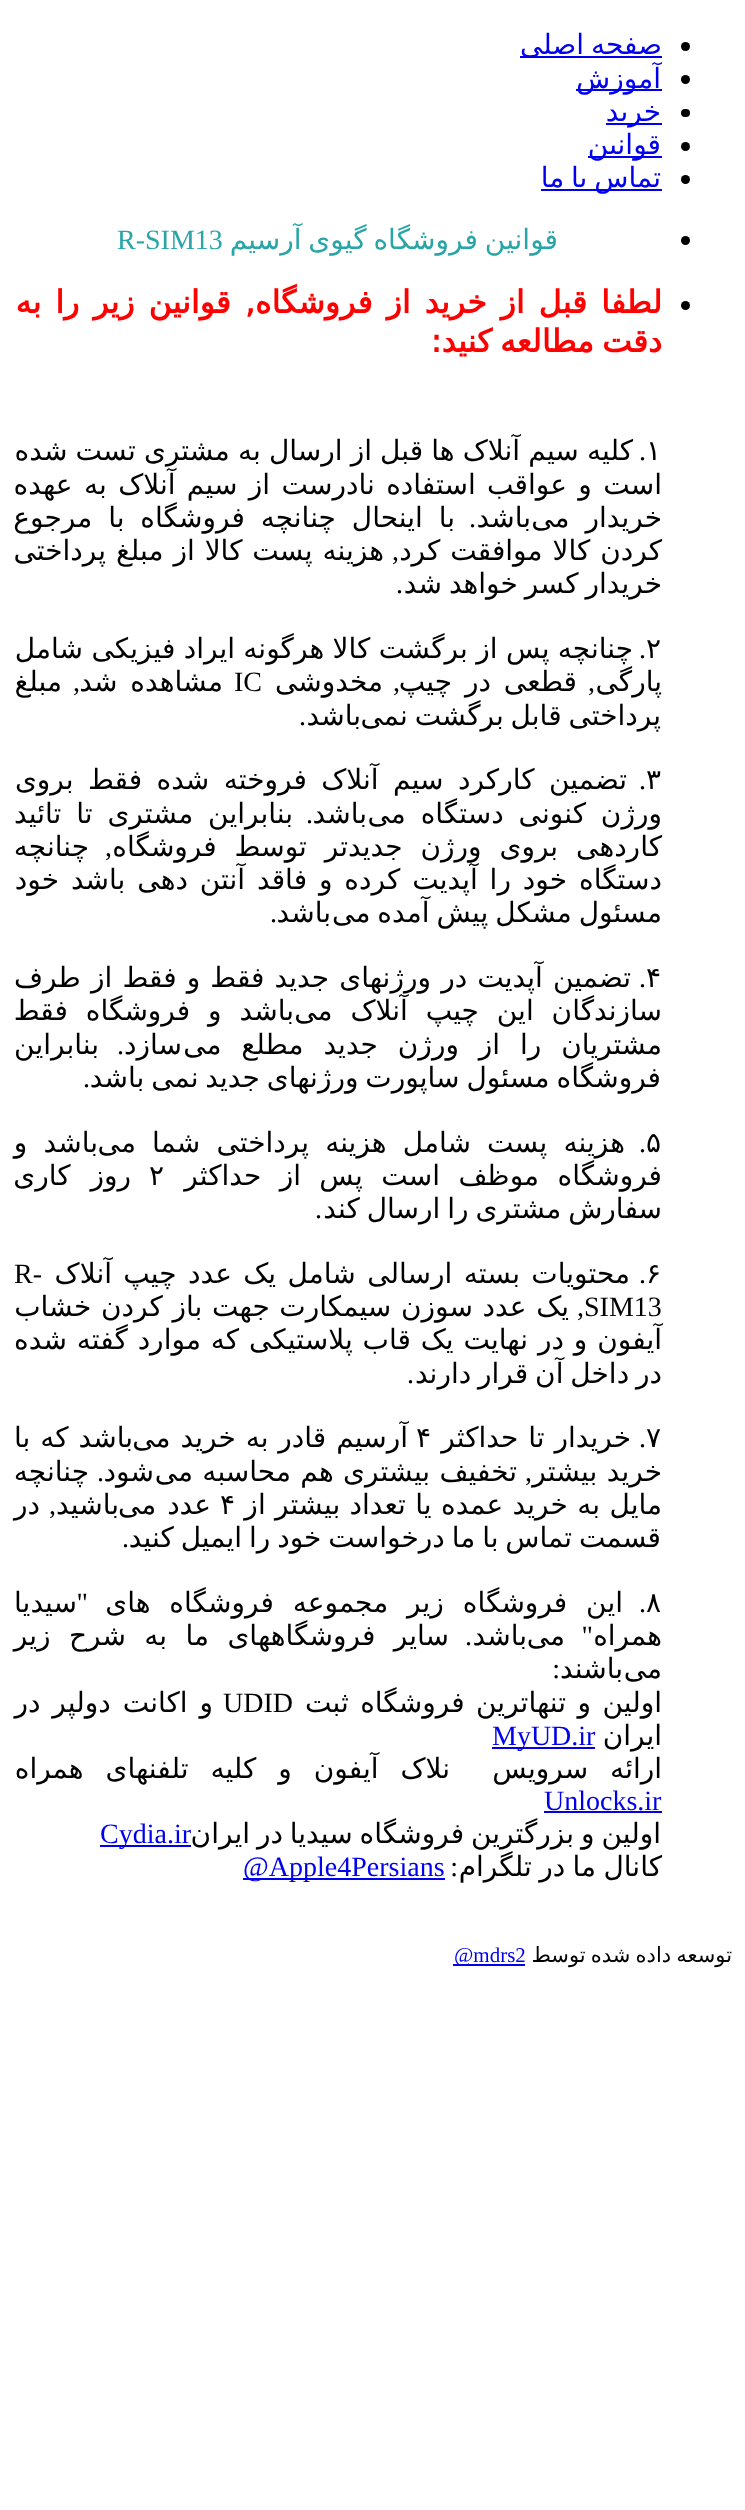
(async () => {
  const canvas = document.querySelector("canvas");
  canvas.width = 745;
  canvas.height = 2510;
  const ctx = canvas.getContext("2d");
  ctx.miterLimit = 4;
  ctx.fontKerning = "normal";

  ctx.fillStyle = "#ffffff";
  ctx.fillRect(0, 0, 745, 2510);
  ctx.fillStyle = "#000000";
  ctx.beginPath();
  ctx.arc(685.5, 46.5, 4.5, 0, Math.PI * 2);
  ctx.fill();
  ctx.fillStyle = "#0000ee";
  ctx.fillRect(520, 56, 142, 2);
  ctx.fillStyle = "#000000";
  ctx.beginPath();
  ctx.arc(685.5, 79.5, 4.5, 0, Math.PI * 2);
  ctx.fill();
  ctx.fillStyle = "#0000ee";
  ctx.fillRect(576, 89, 86, 2);
  ctx.fillStyle = "#000000";
  ctx.beginPath();
  ctx.roundRect(681, 109, 9, 8, 4);
  ctx.fill();
  ctx.fillStyle = "#0000ee";
  ctx.fillRect(606, 123, 56, 2);
  ctx.fillStyle = "#000000";
  ctx.beginPath();
  ctx.arc(685.5, 146.5, 4.5, 0, Math.PI * 2);
  ctx.fill();
  ctx.fillStyle = "#0000ee";
  ctx.fillRect(588, 156, 74, 2);
  ctx.fillStyle = "#000000";
  ctx.beginPath();
  ctx.arc(685.5, 179.5, 4.5, 0, Math.PI * 2);
  ctx.fill();
  ctx.fillStyle = "#0000ee";
  ctx.fillRect(541, 189, 121, 2);
  ctx.fillStyle = "#000000";
  ctx.beginPath();
  ctx.arc(685.5, 240.5, 4.5, 0, Math.PI * 2);
  ctx.fill();
  ctx.beginPath();
  ctx.arc(685.5, 305.5, 4.5, 0, Math.PI * 2);
  ctx.fill();
  for (const [x, y, w, h, color] of [
    [492, 1747, 103, 2, "#0000ee"],
    [544, 1811, 118, 2, "#0000ee"],
    [100, 1845, 91, 2, "#0000ee"],
    [243, 1878, 202, 2, "#0000ee"],
    [453, 1964, 72, 2, "#0000ee"],
  ]) {
    ctx.fillStyle = color;
    ctx.fillRect(x, y, w, h);
  }
  ctx.wordSpacing = "-2px";
  ctx.direction = "rtl";
  ctx.font = "28px DejaVu Sans";
  ctx.fillText("صفحه اصلی", 662, 54);
  ctx.wordSpacing = "0px";
  for (const [text, x, y] of [
    ["آموزش", 661, 88],
    ["خرید", 661, 121],
    ["قوانین", 661, 154],
  ]) {
    ctx.fillText(text, x, y);
  }
  ctx.wordSpacing = "-2px";
  ctx.fillText("تماس با ما", 661, 187);
  ctx.fillStyle = "#29a5a7";
  ctx.fillText("قوانین فروشگاه گیوی آرسیم", 558, 249);
  ctx.wordSpacing = "0px";
  ctx.direction = "ltr";
  ctx.font = "28px Liberation Serif";
  ctx.fillText("R-SIM13", 117, 249);
  ctx.wordSpacing = "4px";
  ctx.direction = "rtl";
  ctx.font = "bold 31.5px DejaVu Sans";
  ctx.fillStyle = "#ff0000";
  ctx.fillText("لطفا قبل از خرید از فروشگاه, قوانین زیر را به", 662, 313);
  ctx.wordSpacing = "-2px";
  ctx.fillText("دقت مطالعه کنید:", 662, 352);
  ctx.wordSpacing = "0px";
  ctx.direction = "ltr";
  ctx.font = "28px DejaVu Sans";
  ctx.fillStyle = "#000000";
  ctx.fillText("۱", 646, 460);
  ctx.direction = "rtl";
  ctx.font = "28px Liberation Serif";
  ctx.fillText(".", 646, 460);
  ctx.wordSpacing = "-0.75px";
  ctx.font = "28px DejaVu Sans";
  ctx.fillText("کلیه سیم آنلاک ها قبل از ارسال به مشتری تست شده", 633, 460);
  ctx.wordSpacing = "2.5px";
  ctx.fillText("است و عواقب استفاده نادرست از سیم آنلاک به عهده", 662, 494);
  ctx.wordSpacing = "7px";
  ctx.fillText("خریدار می", 662, 527);
  ctx.wordSpacing = "0px";
  ctx.fillText("باشد", 531, 527);
  ctx.font = "28px Liberation Serif";
  ctx.fillText(".", 476, 527);
  ctx.wordSpacing = "7px";
  ctx.font = "28px DejaVu Sans";
  ctx.fillText("با اینحال چنانچه فروشگاه با مرجوع", 455, 527);
  ctx.wordSpacing = "1px";
  ctx.fillText("کردن کالا موافقت کرد", 662, 560);
  ctx.wordSpacing = "0px";
  ctx.font = "28px Liberation Serif";
  ctx.fillText(",", 399, 560);
  ctx.wordSpacing = "1px";
  ctx.font = "28px DejaVu Sans";
  ctx.fillText("هزینه پست کالا از مبلغ پرداختی", 384, 560);
  ctx.wordSpacing = "-2px";
  ctx.fillText("خریدار کسر خواهد شد", 662, 593);
  ctx.wordSpacing = "0px";
  ctx.font = "28px Liberation Serif";
  ctx.fillText(".", 403, 593);
  ctx.direction = "ltr";
  ctx.font = "28px DejaVu Sans";
  ctx.fillText("۲", 646, 658);
  ctx.direction = "rtl";
  ctx.font = "28px Liberation Serif";
  ctx.fillText(".", 646, 658);
  ctx.wordSpacing = "-0.5px";
  ctx.font = "28px DejaVu Sans";
  ctx.fillText("چنانچه پس از برگشت کالا هرگونه ایراد فیزیکی شامل", 633, 658);
  ctx.wordSpacing = "0px";
  ctx.fillText("پارگی", 662, 691);
  ctx.font = "28px Liberation Serif";
  ctx.fillText(",", 595, 691);
  ctx.wordSpacing = "4px";
  ctx.font = "28px DejaVu Sans";
  ctx.fillText("قطعی در چیپ", 577, 691);
  ctx.wordSpacing = "0px";
  ctx.font = "28px Liberation Serif";
  ctx.fillText(",", 400, 691);
  ctx.font = "28px DejaVu Sans";
  ctx.fillText("مخدوشی", 383, 691);
  ctx.direction = "ltr";
  ctx.font = "28px Liberation Serif";
  ctx.fillText("IC", 234, 691);
  ctx.wordSpacing = "4px";
  ctx.direction = "rtl";
  ctx.font = "28px DejaVu Sans";
  ctx.fillText("مشاهده شد", 223, 691);
  ctx.wordSpacing = "0px";
  ctx.font = "28px Liberation Serif";
  ctx.fillText(",", 80, 691);
  ctx.font = "28px DejaVu Sans";
  ctx.fillText("مبلغ", 62, 691);
  ctx.wordSpacing = "-2px";
  ctx.fillText("پرداختی قابل برگشت نمی", 661, 725);
  ctx.wordSpacing = "0px";
  ctx.fillText("باشد", 361, 725);
  ctx.font = "28px Liberation Serif";
  ctx.fillText(".", 306, 725);
  ctx.direction = "ltr";
  ctx.font = "28px DejaVu Sans";
  ctx.fillText("۳", 646, 789);
  ctx.direction = "rtl";
  ctx.font = "28px Liberation Serif";
  ctx.fillText(".", 646, 789);
  ctx.wordSpacing = "5.5px";
  ctx.font = "28px DejaVu Sans";
  ctx.fillText("تضمین کارکرد سیم آنلاک فروخته شده فقط بروی", 627, 789);
  ctx.wordSpacing = "6px";
  ctx.fillText("ورژن کنونی دستگاه می", 662, 823);
  ctx.wordSpacing = "0px";
  ctx.fillText("باشد", 367, 823);
  ctx.font = "28px Liberation Serif";
  ctx.fillText(".", 313, 823);
  ctx.wordSpacing = "6px";
  ctx.font = "28px DejaVu Sans";
  ctx.fillText("بنابراین مشتری تا تائید", 293, 823);
  ctx.wordSpacing = "9px";
  ctx.fillText("کاردهی بروی ورژن جدیدتر توسط فروشگاه", 662, 856);
  ctx.wordSpacing = "0px";
  ctx.font = "28px Liberation Serif";
  ctx.fillText(",", 112, 856);
  ctx.font = "28px DejaVu Sans";
  ctx.fillText("چنانچه", 89, 856);
  ctx.wordSpacing = "3px";
  ctx.fillText("دستگاه خود را آپدیت کرده و فاقد آنتن دهی باشد خود", 662, 889);
  ctx.wordSpacing = "-2px";
  ctx.fillText("مسئول مشکل پیش آمده می", 662, 922);
  ctx.wordSpacing = "0px";
  ctx.fillText("باشد", 331, 922);
  ctx.font = "28px Liberation Serif";
  ctx.fillText(".", 277, 922);
  ctx.direction = "ltr";
  ctx.font = "28px DejaVu Sans";
  ctx.fillText("۴", 646, 987);
  ctx.direction = "rtl";
  ctx.font = "28px Liberation Serif";
  ctx.fillText(".", 646, 987);
  ctx.wordSpacing = "1.25px";
  ctx.font = "28px DejaVu Sans";
  ctx.fillText("تضمین آپدیت در ورژنهای جدید فقط و فقط از طرف", 631, 987);
  ctx.wordSpacing = "9px";
  ctx.fillText("سازندگان این چیپ آنلاک می", 662, 1020);
  ctx.fillText("باشد و فروشگاه فقط", 294, 1020);
  ctx.wordSpacing = "11px";
  ctx.fillText("مشتریان را از ورژن جدید مطلع می", 662, 1054);
  ctx.wordSpacing = "0px";
  ctx.fillText("سازد", 182, 1054);
  ctx.font = "28px Liberation Serif";
  ctx.fillText(".", 124, 1054);
  ctx.font = "28px DejaVu Sans";
  ctx.fillText("بنابراین", 99, 1054);
  ctx.wordSpacing = "-2px";
  ctx.fillText("فروشگاه مسئول ساپورت ورژنهای جدید نمی باشد", 661, 1087);
  ctx.wordSpacing = "0px";
  ctx.font = "28px Liberation Serif";
  ctx.fillText(".", 90, 1087);
  ctx.direction = "ltr";
  ctx.font = "28px DejaVu Sans";
  ctx.fillText("۵", 646, 1152);
  ctx.direction = "rtl";
  ctx.font = "28px Liberation Serif";
  ctx.fillText(".", 646, 1152);
  ctx.wordSpacing = "7.25px";
  ctx.font = "28px DejaVu Sans";
  ctx.fillText("هزینه پست شامل هزینه پرداختی شما می", 625, 1152);
  ctx.fillText("باشد و", 98, 1152);
  ctx.wordSpacing = "9.5px";
  ctx.fillText("فروشگاه موظف است پس از حداکثر", 662, 1185);
  ctx.wordSpacing = "0px";
  ctx.direction = "ltr";
  ctx.fillText("۲", 149, 1185);
  ctx.wordSpacing = "11px";
  ctx.direction = "rtl";
  ctx.fillText("روز کاری", 131, 1185);
  ctx.wordSpacing = "-2px";
  ctx.fillText("سفارش مشتری را ارسال کند", 662, 1218);
  ctx.wordSpacing = "0px";
  ctx.font = "28px Liberation Serif";
  ctx.fillText(".", 322, 1218);
  ctx.direction = "ltr";
  ctx.font = "28px DejaVu Sans";
  ctx.fillText("۶", 646, 1283);
  ctx.direction = "rtl";
  ctx.font = "28px Liberation Serif";
  ctx.fillText(".", 646, 1283);
  ctx.wordSpacing = "2.5px";
  ctx.font = "28px DejaVu Sans";
  ctx.fillText("محتویات بسته ارسالی شامل یک عدد چیپ آنلاک", 630, 1283);
  ctx.wordSpacing = "0px";
  ctx.direction = "ltr";
  ctx.font = "28px Liberation Serif";
  ctx.fillText("R-", 14, 1283);
  ctx.fillText("SIM13", 584, 1316);
  ctx.direction = "rtl";
  ctx.fillText(",", 584, 1316);
  ctx.wordSpacing = "0.75px";
  ctx.font = "28px DejaVu Sans";
  ctx.fillText("یک عدد سوزن سیمکارت جهت باز کردن خشاب", 569, 1316);
  ctx.wordSpacing = "1px";
  ctx.fillText("آیفون و در نهایت یک قاب پلاستیکی که موارد گفته شده", 662, 1349);
  ctx.wordSpacing = "-2px";
  ctx.fillText("در داخل آن قرار دارند", 662, 1383);
  ctx.wordSpacing = "0px";
  ctx.font = "28px Liberation Serif";
  ctx.fillText(".", 414, 1383);
  ctx.direction = "ltr";
  ctx.font = "28px DejaVu Sans";
  ctx.fillText("۷", 646, 1447);
  ctx.direction = "rtl";
  ctx.font = "28px Liberation Serif";
  ctx.fillText(".", 646, 1447);
  ctx.wordSpacing = "1px";
  ctx.font = "28px DejaVu Sans";
  ctx.fillText("خریدار تا حداکثر", 631, 1447);
  ctx.wordSpacing = "0px";
  ctx.direction = "ltr";
  ctx.fillText("۴", 416, 1447);
  ctx.wordSpacing = "1px";
  ctx.direction = "rtl";
  ctx.fillText("آرسیم قادر به خرید می", 408, 1447);
  ctx.fillText("باشد که با", 133, 1447);
  ctx.wordSpacing = "0.5px";
  ctx.fillText("خرید بیشتر", 662, 1481);
  ctx.wordSpacing = "0px";
  ctx.font = "28px Liberation Serif";
  ctx.fillText(",", 532, 1481);
  ctx.wordSpacing = "0.5px";
  ctx.font = "28px DejaVu Sans";
  ctx.fillText("تخفیف بیشتری هم محاسبه می", 517, 1481);
  ctx.wordSpacing = "0px";
  ctx.fillText("شود", 154, 1481);
  ctx.font = "28px Liberation Serif";
  ctx.fillText(".", 104, 1481);
  ctx.font = "28px DejaVu Sans";
  ctx.fillText("چنانچه", 89, 1481);
  ctx.wordSpacing = "0.5px";
  ctx.fillText("مایل به خرید عمده یا تعداد بیشتر از", 662, 1514);
  ctx.wordSpacing = "0px";
  ctx.direction = "ltr";
  ctx.fillText("۴", 220, 1514);
  ctx.wordSpacing = "2px";
  ctx.direction = "rtl";
  ctx.fillText("عدد می", 211, 1514);
  ctx.wordSpacing = "0px";
  ctx.fillText("باشید", 119, 1514);
  ctx.font = "28px Liberation Serif";
  ctx.fillText(",", 56, 1514);
  ctx.font = "28px DejaVu Sans";
  ctx.fillText("در", 40, 1514);
  ctx.wordSpacing = "-2px";
  ctx.fillText("قسمت تماس با ما درخواست خود را ایمیل کنید", 661, 1547);
  ctx.wordSpacing = "0px";
  ctx.font = "28px Liberation Serif";
  ctx.fillText(".", 129, 1547);
  ctx.direction = "ltr";
  ctx.font = "28px DejaVu Sans";
  ctx.fillText("۸", 646, 1612);
  ctx.direction = "rtl";
  ctx.font = "28px Liberation Serif";
  ctx.fillText(".", 646, 1612);
  ctx.wordSpacing = "10px";
  ctx.font = "28px DejaVu Sans";
  ctx.fillText("این فروشگاه زیر مجموعه فروشگاه های", 623, 1612);
  ctx.wordSpacing = "0px";
  ctx.font = "28px Liberation Serif";
  ctx.fillText("\"", 88, 1612);
  ctx.font = "28px DejaVu Sans";
  ctx.fillText("سیدیا", 77, 1612);
  ctx.fillText("همراه", 662, 1645);
  ctx.font = "28px Liberation Serif";
  ctx.fillText("\"", 593, 1645);
  ctx.font = "28px DejaVu Sans";
  ctx.fillText("باشد", 527, 1645);
  ctx.wordSpacing = "9.5px";
  ctx.fillText("سایر فروشگاههای ما به شرح زیر", 449, 1645);
  ctx.wordSpacing = "0px";
  ctx.fillText("می", 565, 1645);
  ctx.font = "28px Liberation Serif";
  ctx.fillText(".", 472, 1645);
  ctx.font = "28px DejaVu Sans";
  ctx.fillText("می", 662, 1678);
  ctx.fillText("باشند", 623, 1678);
  ctx.font = "28px Liberation Serif";
  ctx.fillText(":", 560, 1678);
  ctx.wordSpacing = "2.5px";
  ctx.font = "28px DejaVu Sans";
  ctx.fillText("اولین و تنهاترین فروشگاه ثبت", 662, 1712);
  ctx.wordSpacing = "0px";
  ctx.direction = "ltr";
  ctx.font = "28px Liberation Serif";
  ctx.fillText("UDID", 223, 1712);
  ctx.wordSpacing = "3px";
  ctx.direction = "rtl";
  ctx.font = "28px DejaVu Sans";
  ctx.fillText("و اکانت دولپر در", 213, 1712);
  ctx.wordSpacing = "0px";
  ctx.fillText("ایران", 662, 1745);
  ctx.direction = "ltr";
  ctx.font = "28px Liberation Serif";
  ctx.fillStyle = "#0000ee";
  ctx.fillText("MyUD.ir", 492, 1745);
  ctx.wordSpacing = "13px";
  ctx.direction = "rtl";
  ctx.font = "28px DejaVu Sans";
  ctx.fillStyle = "#000000";
  ctx.fillText("ارائه سرویس", 662, 1778);
  ctx.fillText("نلاک آیفون و کلیه تلفنهای همراه", 450, 1778);
  ctx.wordSpacing = "0px";
  ctx.direction = "ltr";
  ctx.font = "28px Liberation Serif";
  ctx.fillStyle = "#0000ee";
  ctx.fillText("Unlocks.ir", 544, 1810);
  ctx.wordSpacing = "-2px";
  ctx.direction = "rtl";
  ctx.font = "28px DejaVu Sans";
  ctx.fillStyle = "#000000";
  ctx.fillText("اولین و بزرگترین فروشگاه سیدیا در ایران", 661, 1843);
  ctx.wordSpacing = "0px";
  ctx.direction = "ltr";
  ctx.font = "28px Liberation Serif";
  ctx.fillStyle = "#0000ee";
  ctx.fillText("Cydia.ir", 100, 1843);
  ctx.wordSpacing = "-1.5px";
  ctx.direction = "rtl";
  ctx.font = "28px DejaVu Sans";
  ctx.fillStyle = "#000000";
  ctx.fillText("کانال ما در تلگرام", 662, 1876);
  ctx.wordSpacing = "0px";
  ctx.font = "28px Liberation Serif";
  ctx.fillText(":", 458, 1876);
  ctx.direction = "ltr";
  ctx.fillStyle = "#0000ee";
  ctx.fillText("@Apple4Persians", 243, 1876);
  ctx.wordSpacing = "-1.5px";
  ctx.direction = "rtl";
  ctx.font = "21px DejaVu Sans";
  ctx.fillStyle = "#000000";
  ctx.fillText("توسعه داده شده توسط", 732, 1962);
  ctx.wordSpacing = "0px";
  ctx.direction = "ltr";
  ctx.font = "21px Liberation Serif";
  ctx.fillStyle = "#0000ee";
  ctx.fillText("@mdrs2", 454, 1962);
})();
